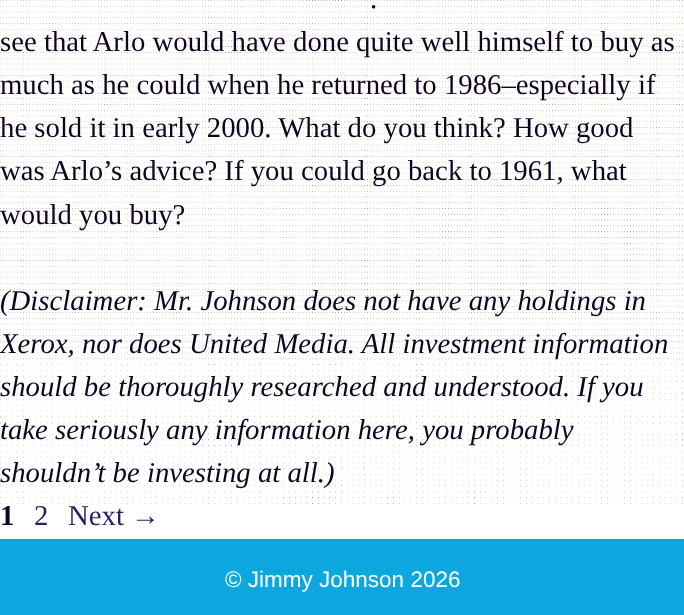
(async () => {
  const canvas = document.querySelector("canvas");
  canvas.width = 684;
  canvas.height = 615;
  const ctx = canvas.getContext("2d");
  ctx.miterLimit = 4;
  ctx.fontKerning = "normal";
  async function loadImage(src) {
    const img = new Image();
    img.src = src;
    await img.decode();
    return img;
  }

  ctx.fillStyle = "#ffffff";
  ctx.fillRect(0, 0, 684, 615);
  ctx.drawImage(await loadImage("img/1.png"), 0, 0, 683, 505);
  ctx.fillStyle = "#0da7e0";
  ctx.fillRect(0, 539, 684, 76);
  ctx.font = "28.75px Liberation Serif";
  ctx.fillStyle = "#0e0421";
  for (const [text, x, y] of [
    [".", 370, 8],
    ["see that Arlo would have done quite well himself to buy as", 0, 51],
    ["much as he could when he returned to 1986–especially if", 0, 94],
    ["he sold it in early 2000. What do you think? How good", 0, 137],
    ["was Arlo’s advice? If you could go back to 1961, what", 0, 180],
    ["would you buy?", 0, 224],
  ]) {
    ctx.fillText(text, x, y);
  }
  ctx.font = "italic 28.75px Liberation Serif";
  for (const [text, x, y] of [
    ["(Disclaimer: Mr. Johnson does not have any holdings in", 0, 310],
    ["Xerox, nor does United Media. All investment information", 0, 353],
    ["should be thoroughly researched and understood. If you", 0, 396],
    ["take seriously any information here, you probably", 0, 439],
    ["shouldn’t be investing at all.)", 0, 482],
  ]) {
    ctx.fillText(text, x, y);
  }
  ctx.font = "bold 28.75px Liberation Serif";
  ctx.fillText("1", 0, 525);
  ctx.font = "28.75px Liberation Serif";
  ctx.fillStyle = "#2c2060";
  ctx.fillText("2", 34, 525);
  ctx.fillText("Next →", 68, 525);
  ctx.font = "22.5px Liberation Sans";
  ctx.fillStyle = "#ffffff";
  ctx.fillText("© Jimmy Johnson 2026", 225, 587);
})();
